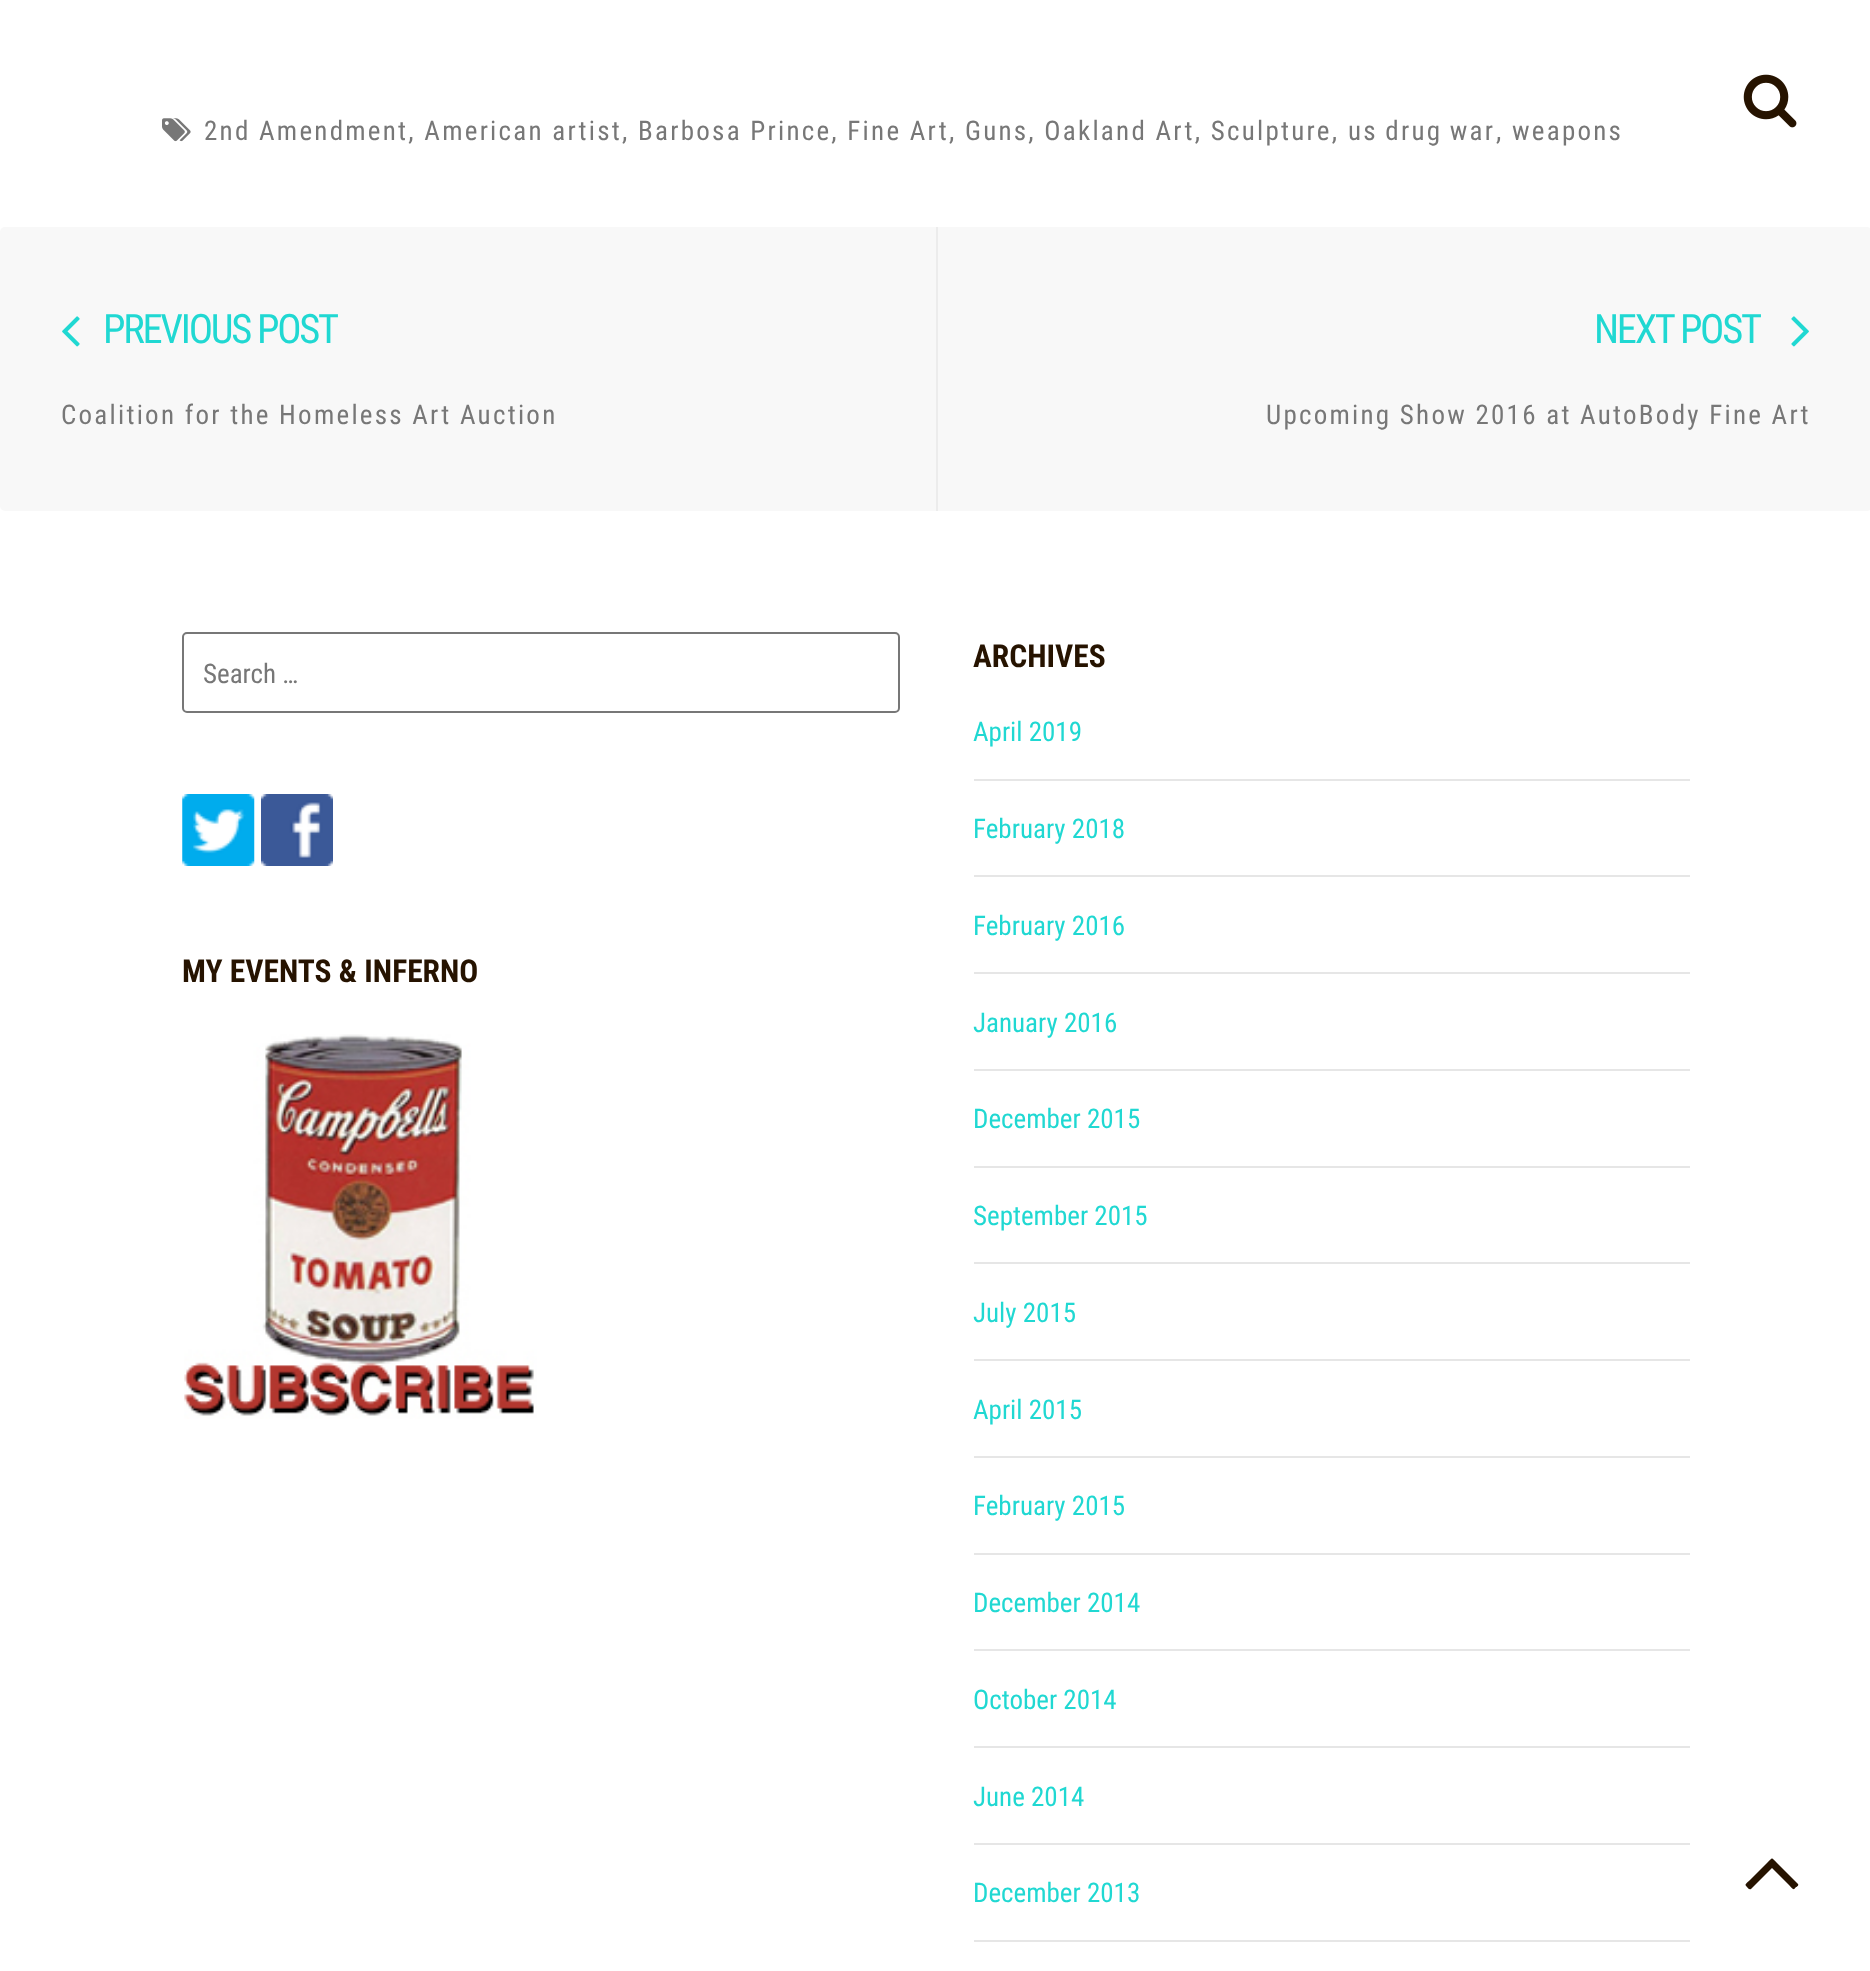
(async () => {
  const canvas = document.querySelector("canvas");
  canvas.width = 1870;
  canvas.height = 1971;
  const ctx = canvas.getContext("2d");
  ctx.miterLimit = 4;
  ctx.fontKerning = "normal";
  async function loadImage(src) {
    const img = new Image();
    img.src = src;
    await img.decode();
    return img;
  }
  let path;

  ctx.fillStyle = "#ffffff";
  ctx.fillRect(0, 0, 1870, 1971);
  ctx.drawImage(await loadImage("img/1.png"), 1743, 74, 54, 54);
  ctx.drawImage(await loadImage("img/2.png"), 162, 118, 29, 24);
  ctx.fillStyle = "#f8f8f8";
  ctx.beginPath();
  ctx.roundRect(0, 227, 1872, 284, 5);
  ctx.fill();
  ctx.drawImage(await loadImage("img/3.png"), 62, 316, 18, 31);
  ctx.fillStyle = "#ececec";
  ctx.fillRect(936, 227, 2, 284);
  ctx.drawImage(await loadImage("img/4.png"), 1791, 316, 18, 31);
  ctx.beginPath();
  ctx.roundRect(183, 633, 716, 79, 4);
  ctx.strokeStyle = "#777777";
  ctx.lineWidth = 2;
  ctx.stroke();
  for (const [x, y, w, h, color] of [
    [974, 779, 716, 2, "#e6e6e6"],
    [974, 875, 716, 2, "#e6e6e6"],
    [974, 972, 716, 2, "#e6e6e6"],
    [974, 1069, 716, 2, "#e6e6e6"],
    [974, 1166, 716, 2, "#e6e6e6"],
    [974, 1262, 716, 2, "#e6e6e6"],
    [974, 1359, 716, 2, "#e6e6e6"],
    [974, 1456, 716, 2, "#e6e6e6"],
    [974, 1553, 716, 2, "#e6e6e6"],
    [974, 1649, 716, 2, "#e6e6e6"],
    [974, 1746, 716, 2, "#e6e6e6"],
    [974, 1843, 716, 2, "#e6e6e6"],
    [974, 1940, 716, 2, "#e6e6e6"],
  ]) {
    ctx.fillStyle = color;
    ctx.fillRect(x, y, w, h);
  }
  ctx.drawImage(await loadImage("img/5.png"), 182, 794, 73, 72);
  ctx.drawImage(await loadImage("img/6.png"), 261, 794, 72, 72);
  ctx.drawImage(await loadImage("img/7.png"), 184, 1034, 353, 385);
  ctx.fillStyle = "#261300";
  path = new Path2D("M1798 1884C1799 1885 1797 1887 1796 1887C1793 1891 1793 1889 1789 1885L1772 1868L1751 1889C1749 1890 1748 1888 1747 1887C1744 1884 1746 1884 1750 1880L1767 1863C1773 1857 1771 1857 1777 1863Z");
  ctx.fill(path);
  ctx.letterSpacing = "2.25px";
  ctx.font = "27px Roboto Condensed";
  ctx.fillStyle = "#777777";
  ctx.fillText("2nd Amendment, American artist, Barbosa Prince, Fine Art, Guns, Oakland Art, Sculpture,", 204, 140);
  ctx.wordSpacing = "-1px";
  ctx.fillText("us drug war", 1348, 140);
  ctx.wordSpacing = "0px";
  ctx.fillText(", weapons", 1496, 140);
  ctx.letterSpacing = "-2.25px";
  ctx.font = "40.5px Roboto Condensed";
  ctx.fillStyle = "#20d8d2";
  ctx.fillText("PREVIOUS POST", 103, 343);
  ctx.letterSpacing = "2.25px";
  ctx.font = "27px Roboto Condensed";
  ctx.fillStyle = "#777777";
  ctx.fillText("Coalition for the Homeless Art Auction", 61, 424);
  ctx.letterSpacing = "-2.25px";
  ctx.font = "40.5px Roboto Condensed";
  ctx.fillStyle = "#20d8d2";
  ctx.fillText("NEXT POST", 1594, 343);
  ctx.letterSpacing = "2.25px";
  ctx.font = "27px Roboto Condensed";
  ctx.fillStyle = "#777777";
  ctx.fillText("Upcoming Show 2016 at AutoBody Fine Art", 1266, 424);
  ctx.letterSpacing = "0px";
  ctx.fillText("Search …", 203, 683);
  ctx.font = "bold 31.5px Roboto Condensed";
  ctx.fillStyle = "#261300";
  ctx.fillText("ARCHIVES", 973, 667);
  ctx.font = "27px Roboto Condensed";
  ctx.fillStyle = "#20d8d2";
  for (const [text, x, y] of [
    ["April 2019", 973, 741],
    ["February 2018", 973, 838],
    ["February 2016", 973, 935],
    ["January 2016", 973, 1032],
    ["December 2015", 973, 1128],
    ["September 2015", 973, 1225],
    ["July 2015", 973, 1322],
    ["April 2015", 973, 1419],
    ["February 2015", 973, 1515],
    ["December 2014", 973, 1612],
    ["October 2014", 973, 1709],
    ["June 2014", 973, 1806],
    ["December 2013", 973, 1902],
  ]) {
    ctx.fillText(text, x, y);
  }
  ctx.font = "bold 31.5px Roboto Condensed";
  ctx.fillStyle = "#261300";
  ctx.fillText("MY EVENTS & INFERNO", 182, 982);
})();
